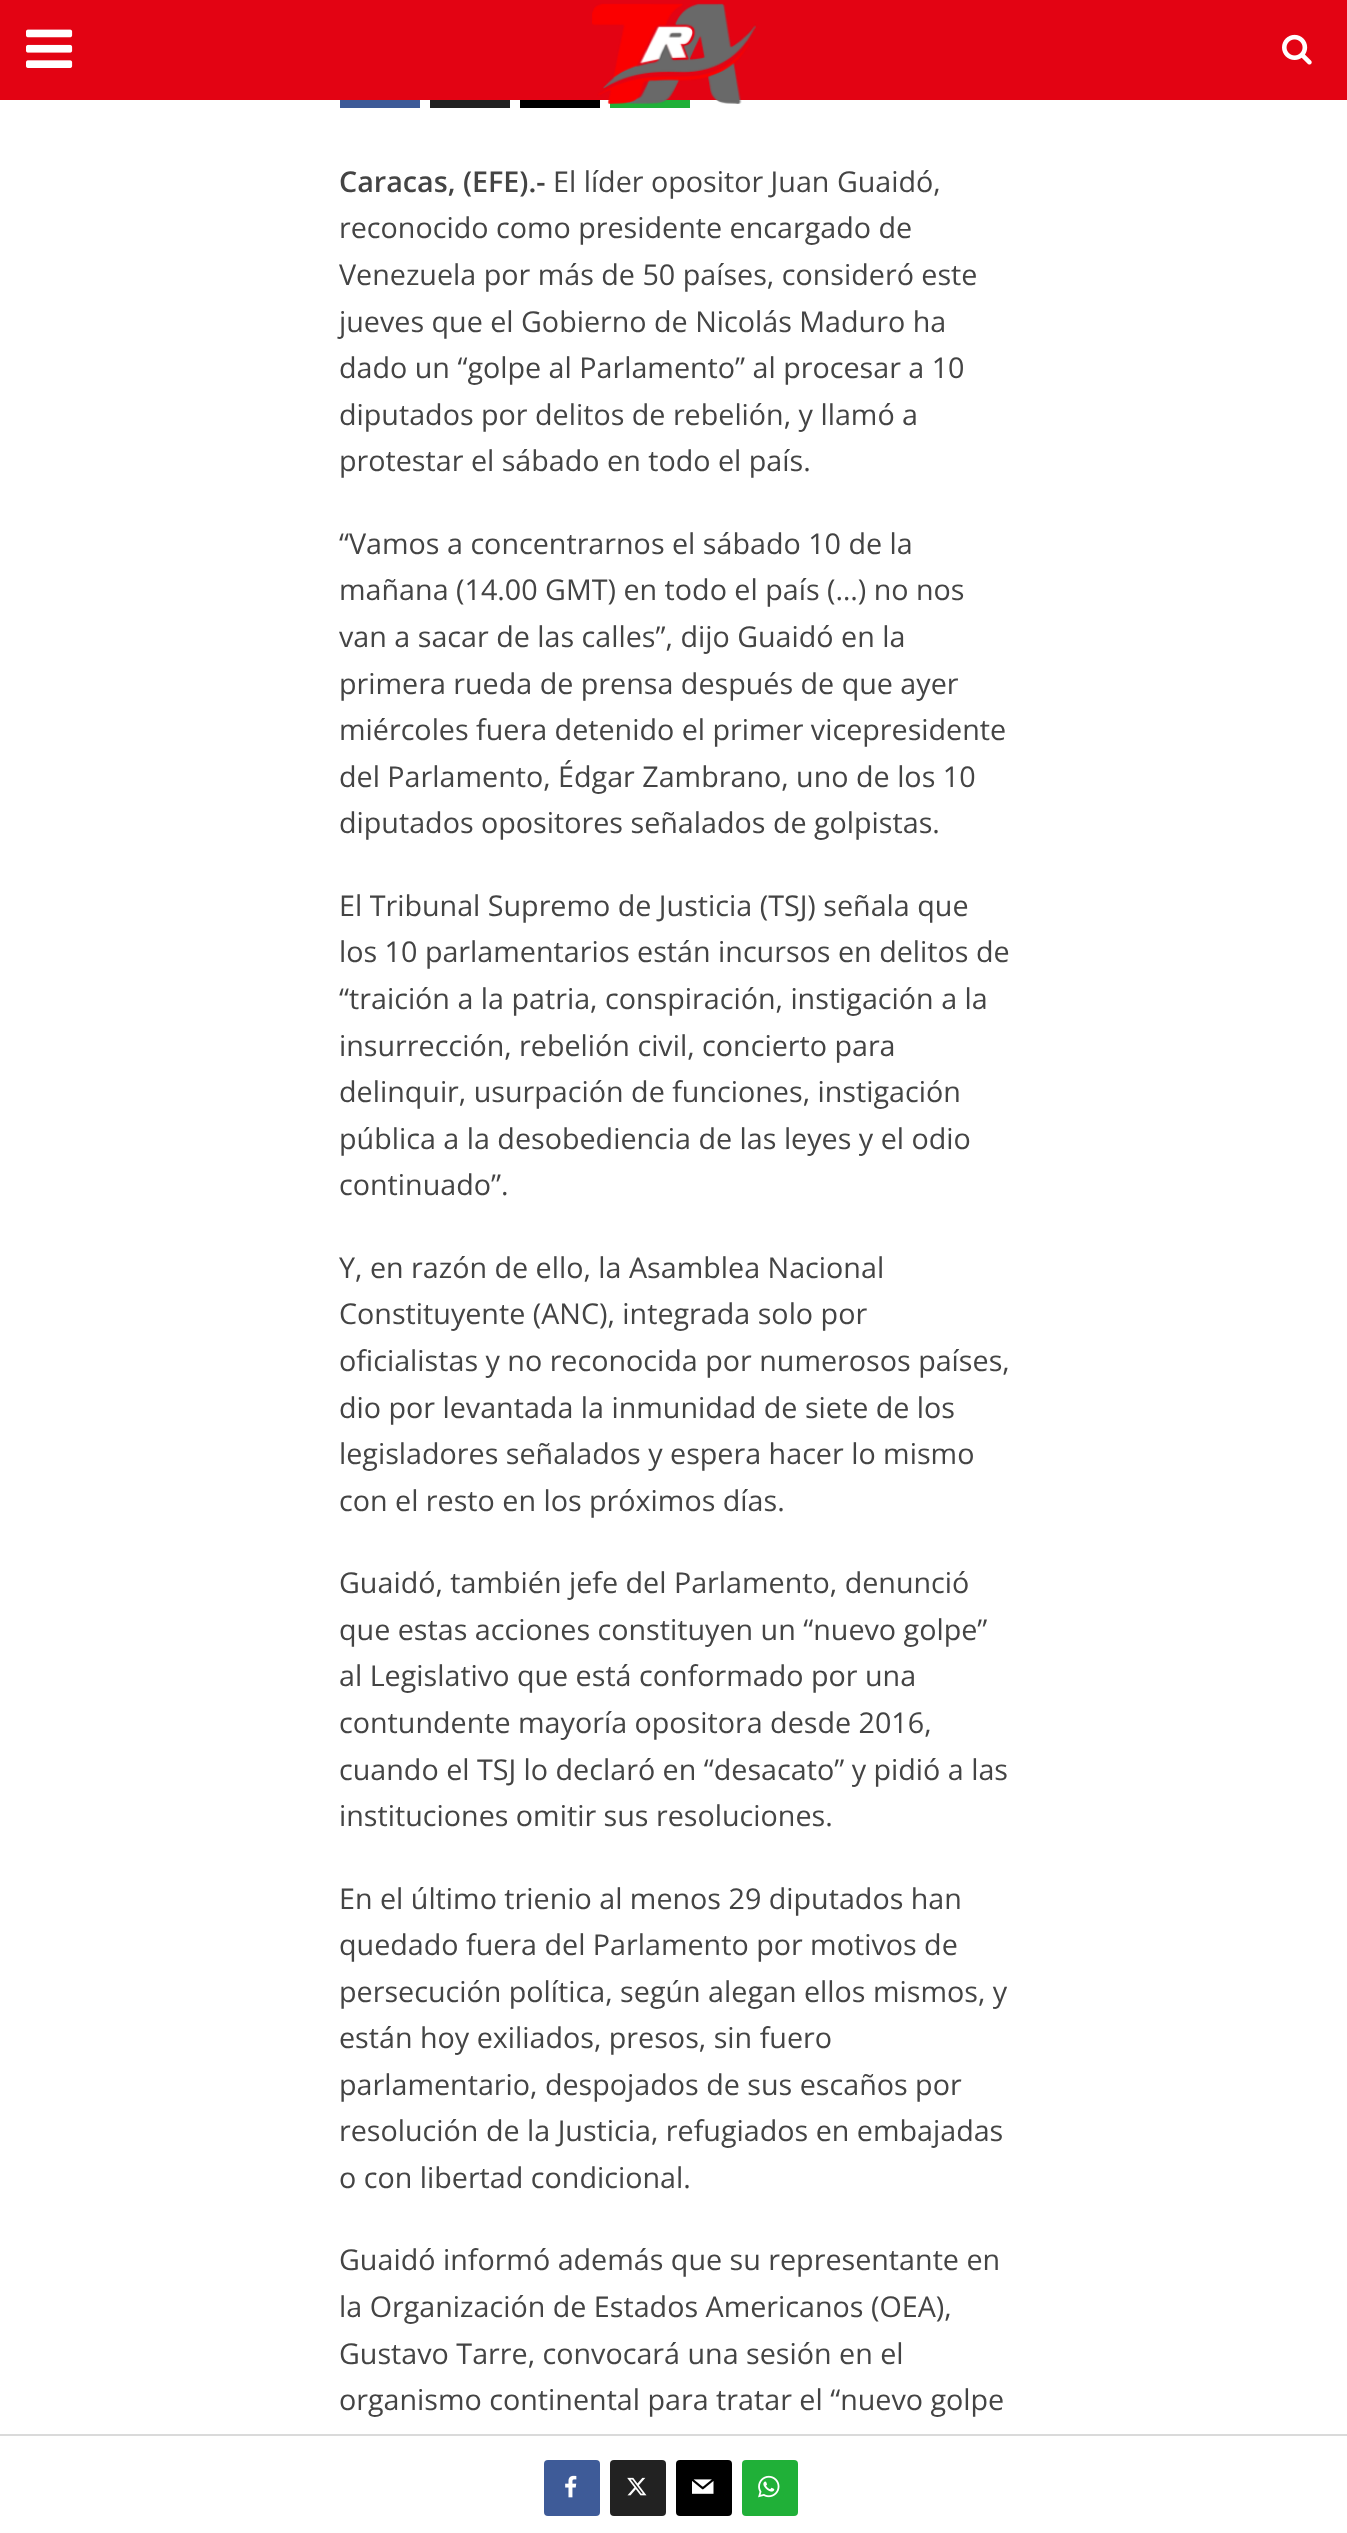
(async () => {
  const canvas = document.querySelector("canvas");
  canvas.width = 1347;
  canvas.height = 2533;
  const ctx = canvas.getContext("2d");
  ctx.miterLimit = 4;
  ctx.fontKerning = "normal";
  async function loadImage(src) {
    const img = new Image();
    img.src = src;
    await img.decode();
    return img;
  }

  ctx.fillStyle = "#ffffff";
  ctx.fillRect(0, 0, 1347, 2533);
  ctx.fillStyle = "#e30313";
  ctx.fillRect(0, 0, 1347, 100);
  ctx.drawImage(await loadImage("img/1.png"), 26, 29, 47, 39);
  ctx.fillStyle = "#000000";
  ctx.fillRect(520, 100, 80, 8);
  ctx.fillStyle = "#20b038";
  ctx.fillRect(610, 100, 80, 8);
  ctx.drawImage(await loadImage("img/2.png"), 592, 3, 164, 101);
  ctx.drawImage(await loadImage("img/3.png"), 1282, 34, 30, 31);
  for (const [x, y, w, h, color] of [
    [340, 100, 80, 8, "#3e5b98"],
    [430, 100, 80, 8, "#222222"],
    [0, 2434, 1347, 2, "#dadada"],
  ]) {
    ctx.fillStyle = color;
    ctx.fillRect(x, y, w, h);
  }
  ctx.fillStyle = "#3e5b98";
  ctx.beginPath();
  ctx.roundRect(544, 2460, 56, 56, 4);
  ctx.fill();
  ctx.drawImage(await loadImage("img/4.png"), 565, 2475, 12, 23);
  ctx.fillStyle = "#222222";
  ctx.beginPath();
  ctx.roundRect(610, 2460, 56, 56, 4);
  ctx.fill();
  ctx.drawImage(await loadImage("img/5.png"), 627, 2477, 20, 19);
  ctx.fillStyle = "#000000";
  ctx.beginPath();
  ctx.roundRect(676, 2460, 56, 56, 4);
  ctx.fill();
  ctx.drawImage(await loadImage("img/6.png"), 692, 2479, 22, 15);
  ctx.fillStyle = "#20b038";
  ctx.beginPath();
  ctx.roundRect(742, 2460, 56, 56, 4);
  ctx.fill();
  ctx.drawImage(await loadImage("img/7.png"), 758, 2475, 22, 23);
  ctx.font = "600 28.7px Open Sans";
  ctx.fillStyle = "#444444";
  ctx.fillText("Caracas, (EFE).-", 339, 192);
  ctx.font = "28.7px Open Sans";
  for (const [text, x, y] of [
    ["El líder opositor Juan Guaidó,", 553, 192],
    ["reconocido como presidente encargado de", 339, 238],
    ["Venezuela por más de 50 países, consideró este", 339, 285],
    ["jueves que el Gobierno de Nicolás Maduro ha", 339, 332],
    ["dado un “golpe al Parlamento” al procesar a 10", 339, 378],
    ["diputados por delitos de rebelión, y llamó a", 339, 425],
    ["protestar el sábado en todo el país.", 339, 471],
    ["“Vamos a concentrarnos el sábado 10 de la", 339, 554],
    ["mañana (14.00 GMT) en todo el país (…) no nos", 339, 600],
    ["van a sacar de las calles”, dijo Guaidó en la", 339, 647],
    ["primera rueda de prensa después de que ayer", 339, 694],
    ["miércoles fuera detenido el primer vicepresidente", 339, 740],
    ["del Parlamento, Édgar Zambrano, uno de los 10", 339, 787],
    ["diputados opositores señalados de golpistas.", 339, 833],
    ["El Tribunal Supremo de Justicia (TSJ) señala que", 339, 916],
    ["los 10 parlamentarios están incursos en delitos de", 339, 962],
    ["“traición a la patria, conspiración, instigación a la", 339, 1009],
    ["insurrección, rebelión civil, concierto para", 339, 1056],
    ["delinquir, usurpación de funciones, instigación", 339, 1102],
    ["pública a la desobediencia de las leyes y el odio", 339, 1149],
    ["continuado”.", 339, 1195],
    ["Y, en razón de ello, la Asamblea Nacional", 339, 1278],
    ["Constituyente (ANC), integrada solo por", 339, 1324],
    ["oficialistas y no reconocida por numerosos países,", 339, 1371],
    ["dio por levantada la inmunidad de siete de los", 339, 1418],
    ["legisladores señalados y espera hacer lo mismo", 339, 1464],
    ["con el resto en los próximos días.", 339, 1511],
    ["Guaidó, también jefe del Parlamento, denunció", 339, 1593],
    ["que estas acciones constituyen un “nuevo golpe”", 339, 1640],
    ["al Legislativo que está conformado por una", 339, 1686],
    ["contundente mayoría opositora desde 2016,", 339, 1733],
    ["cuando el TSJ lo declaró en “desacato” y pidió a las", 339, 1780],
    ["instituciones omitir sus resoluciones.", 339, 1826],
    ["En el último trienio al menos 29 diputados han", 339, 1909],
    ["quedado fuera del Parlamento por motivos de", 339, 1955],
    ["persecución política, según alegan ellos mismos, y", 339, 2002],
    ["están hoy exiliados, presos, sin fuero", 339, 2048],
    ["parlamentario, despojados de sus escaños por", 339, 2095],
    ["resolución de la Justicia, refugiados en embajadas", 339, 2141],
    ["o con libertad condicional.", 339, 2188],
    ["Guaidó informó además que su representante en", 339, 2270],
    ["la Organización de Estados Americanos (OEA),", 339, 2317],
    ["Gustavo Tarre, convocará una sesión en el", 339, 2364],
    ["organismo continental para tratar el “nuevo golpe", 339, 2410],
  ]) {
    ctx.fillText(text, x, y);
  }
})();
